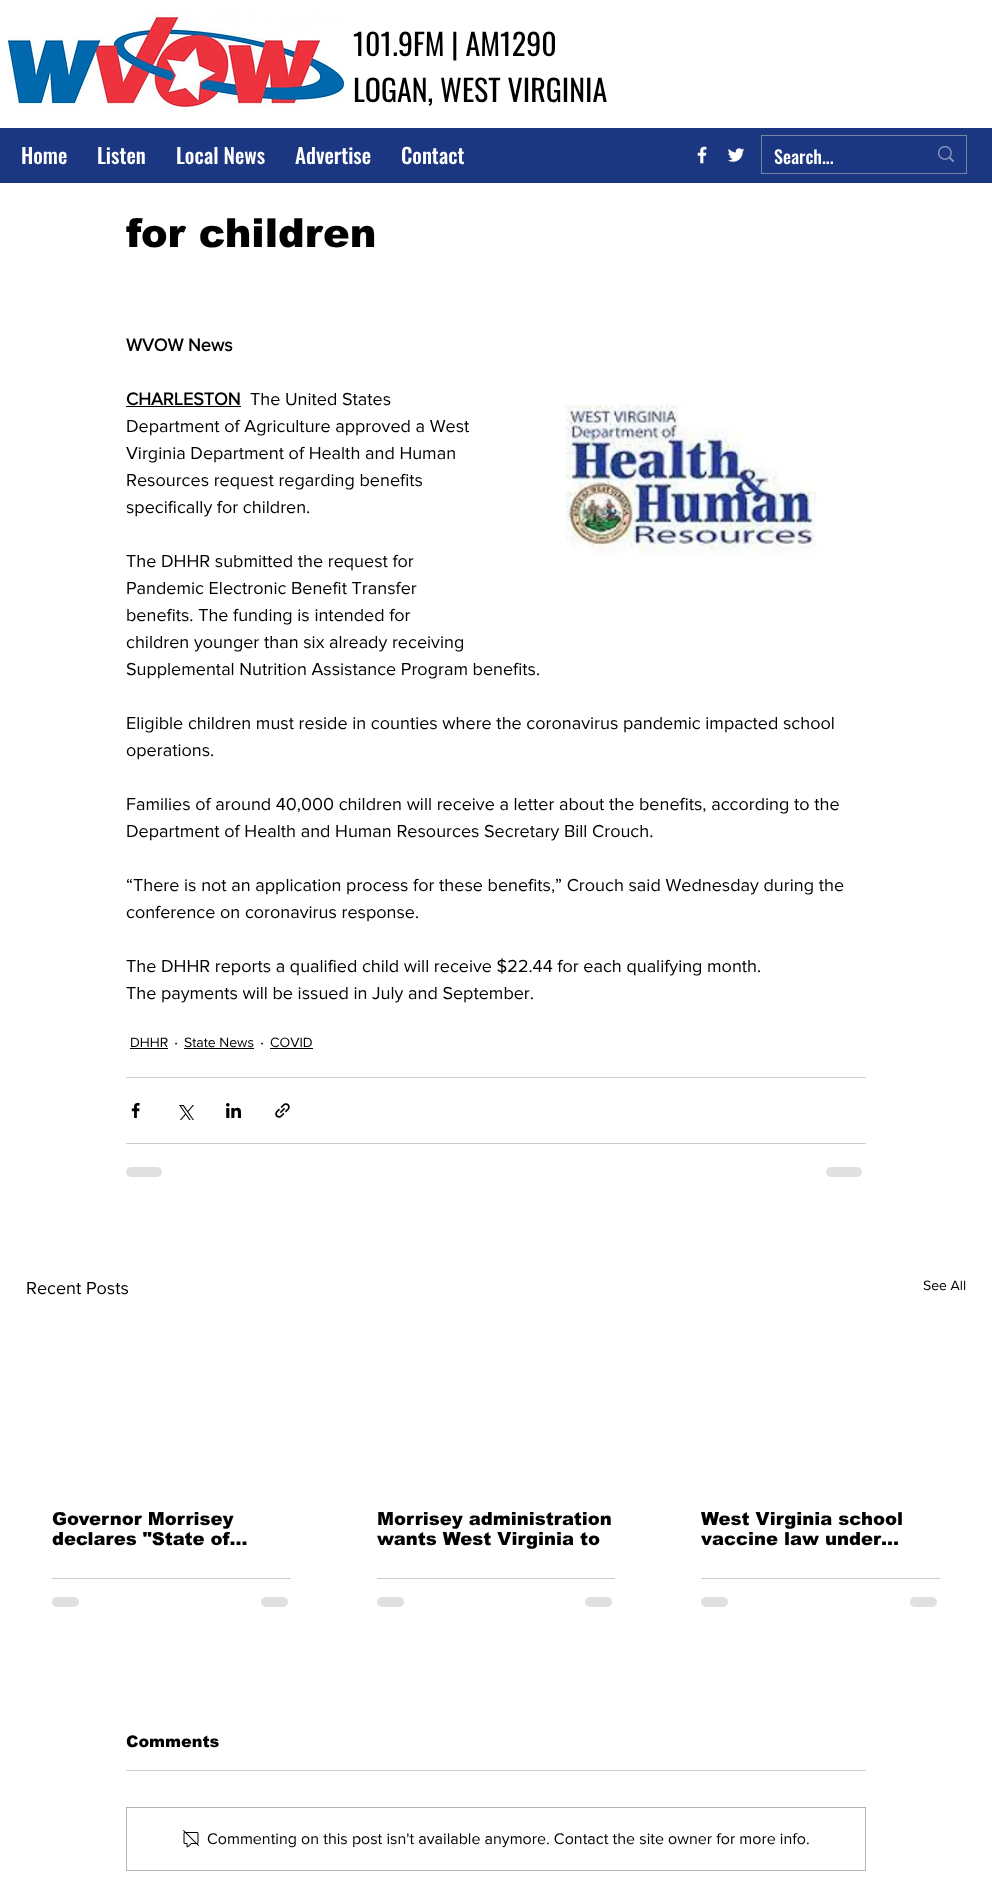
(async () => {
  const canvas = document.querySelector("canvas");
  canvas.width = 992;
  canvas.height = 1887;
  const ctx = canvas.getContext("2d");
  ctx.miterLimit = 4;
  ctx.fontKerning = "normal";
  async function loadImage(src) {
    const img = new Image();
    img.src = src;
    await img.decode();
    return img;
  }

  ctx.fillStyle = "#ffffff";
  ctx.fillRect(0, 0, 992, 1887);
  ctx.drawImage(await loadImage("img/1.png"), 8, 11, 336, 97);
  ctx.fillStyle = "#1c3781";
  ctx.fillRect(0, 128, 992, 55);
  ctx.drawImage(await loadImage("img/2.png"), 697, 146, 10, 18);
  ctx.drawImage(await loadImage("img/3.png"), 728, 148, 17, 14);
  ctx.strokeStyle = "#7683a6";
  ctx.strokeRect(761.5, 135.5, 205, 38);
  ctx.drawImage(await loadImage("img/4.png"), 938, 146, 16, 17);
  ctx.fillStyle = "#000000";
  ctx.fillRect(126, 406, 115, 1);
  ctx.drawImage(await loadImage("img/5.png"), 565, 403, 253, 155);
  for (const [x, y, w, h, color] of [
    [130, 1048, 38, 1, "#000000"],
    [184, 1048, 70, 1, "#000000"],
    [270, 1048, 43, 1, "#000000"],
    [126, 1077, 740, 1, "#cccccc"],
  ]) {
    ctx.fillStyle = color;
    ctx.fillRect(x, y, w, h);
  }
  ctx.drawImage(await loadImage("img/6.png"), 131, 1103, 9, 15);
  ctx.drawImage(await loadImage("img/7.png"), 179, 1105, 15, 15);
  ctx.drawImage(await loadImage("img/8.png"), 226, 1103, 15, 15);
  ctx.drawImage(await loadImage("img/9.png"), 275, 1103, 15, 15);
  ctx.fillRect(126, 1143, 740, 1);
  ctx.fillStyle = "#e0e0e0";
  ctx.beginPath();
  ctx.roundRect(126, 1167, 36, 10, 5);
  ctx.fill();
  ctx.beginPath();
  ctx.roundRect(826, 1167, 36, 10, 5);
  ctx.fill();
  ctx.fillStyle = "#cccccc";
  ctx.fillRect(52, 1578, 239, 1);
  ctx.fillStyle = "#e0e0e0";
  ctx.beginPath();
  ctx.roundRect(52, 1597, 27, 10, 5);
  ctx.fill();
  ctx.beginPath();
  ctx.roundRect(261, 1597, 27, 10, 5);
  ctx.fill();
  ctx.fillStyle = "#cccccc";
  ctx.fillRect(377, 1578, 238, 1);
  ctx.fillStyle = "#e0e0e0";
  ctx.beginPath();
  ctx.roundRect(377, 1597, 27, 10, 5);
  ctx.fill();
  ctx.beginPath();
  ctx.roundRect(585, 1597, 27, 10, 5);
  ctx.fill();
  ctx.fillStyle = "#cccccc";
  ctx.fillRect(701, 1578, 239, 1);
  ctx.fillStyle = "#e0e0e0";
  ctx.beginPath();
  ctx.roundRect(701, 1597, 27, 10, 5);
  ctx.fill();
  ctx.beginPath();
  ctx.roundRect(910, 1597, 27, 10, 5);
  ctx.fill();
  ctx.fillStyle = "#cccccc";
  ctx.fillRect(126, 1770, 740, 1);
  ctx.strokeStyle = "#b3b3b3";
  ctx.strokeRect(126.5, 1807.5, 739, 63);
  ctx.drawImage(await loadImage("img/10.png"), 183, 1830, 16, 18);
  ctx.font = "30px Oswald";
  ctx.fillStyle = "#000000";
  ctx.fillText("101.9FM | AM1290", 353, 56);
  ctx.fillText("LOGAN, WEST VIRGINIA", 353, 102);
  ctx.font = "500 21px Oswald";
  ctx.fillStyle = "#ffffff";
  for (const [text, x, y] of [
    ["Home", 21, 164],
    ["Listen", 97, 164],
    ["Local News", 176, 164],
    ["Advertise", 295, 164],
    ["Contact", 401, 164],
  ]) {
    ctx.fillText(text, x, y);
  }
  ctx.font = "500 18px Oswald";
  ctx.fillText("Search...", 774, 164);
  ctx.font = "900 40px arial";
  ctx.fillStyle = "#000000";
  ctx.fillText("for children", 126, 247);
  ctx.font = "bold 18px 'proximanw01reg'";
  ctx.fillText("WVOW News", 126, 351);
  ctx.fillText("CHARLESTON", 126, 405);
  ctx.font = "18px 'proximanw01reg'";
  for (const [text, x, y] of [
    ["The United States", 250, 405],
    ["Department of Agriculture approved a West", 126, 432],
    ["Virginia Department of Health and Human", 126, 459],
    ["Resources request regarding benefits", 126, 486],
    ["specifically for children.", 126, 513],
    ["The DHHR submitted the request for", 126, 567],
    ["Pandemic Electronic Benefit Transfer", 126, 594],
    ["benefits. The funding is intended for", 126, 621],
    ["children younger than six already receiving", 126, 648],
    ["Supplemental Nutrition Assistance Program benefits.", 126, 675],
    ["Eligible children must reside in counties where the coronavirus pandemic impacted school", 126, 729],
    ["operations.", 126, 756],
    ["Families of around 40,000 children will receive a letter about the benefits, according to the", 126, 810],
    ["Department of Health and Human Resources Secretary Bill Crouch.", 126, 837],
    ["“There is not an application process for these benefits,” Crouch said Wednesday during the", 126, 891],
    ["conference on coronavirus response.", 126, 918],
    ["The DHHR reports a qualified child will receive $22.44 for each qualifying month.", 126, 972],
    ["The payments will be issued in July and September.", 126, 999],
  ]) {
    ctx.fillText(text, x, y);
  }
  ctx.font = "14px 'proximanw01reg'";
  ctx.fillText("DHHR", 130, 1047);
  ctx.font = "18px 'proximanw01reg'";
  ctx.fillText("·", 174, 1048);
  ctx.font = "14px 'proximanw01reg'";
  ctx.fillText("State News", 184, 1047);
  ctx.font = "18px 'proximanw01reg'";
  ctx.fillText("·", 260, 1048);
  ctx.font = "14px 'proximanw01reg'";
  ctx.fillText("COVID", 270, 1047);
  ctx.font = "18px 'proximanw01reg'";
  ctx.fillText("Recent Posts", 26, 1294);
  ctx.font = "14px 'proximanw01reg'";
  ctx.fillText("See All", 923, 1290);
  ctx.font = "900 18px arial";
  for (const [text, x, y] of [
    ["Governor Morrisey", 52, 1525],
    ["declares \"State of…", 52, 1545],
    ["Morrisey administration", 377, 1525],
    ["wants West Virginia to", 377, 1545],
    ["West Virginia school", 701, 1525],
    ["vaccine law under…", 701, 1545],
  ]) {
    ctx.fillText(text, x, y);
  }
  ctx.font = "900 16px arial";
  ctx.fillText("Comments", 126, 1747);
  ctx.font = "16px 'proximanw01reg'";
  ctx.fillText("Commenting on this post isn't available anymore. Contact the site owner for more info.", 207, 1844);
})();
